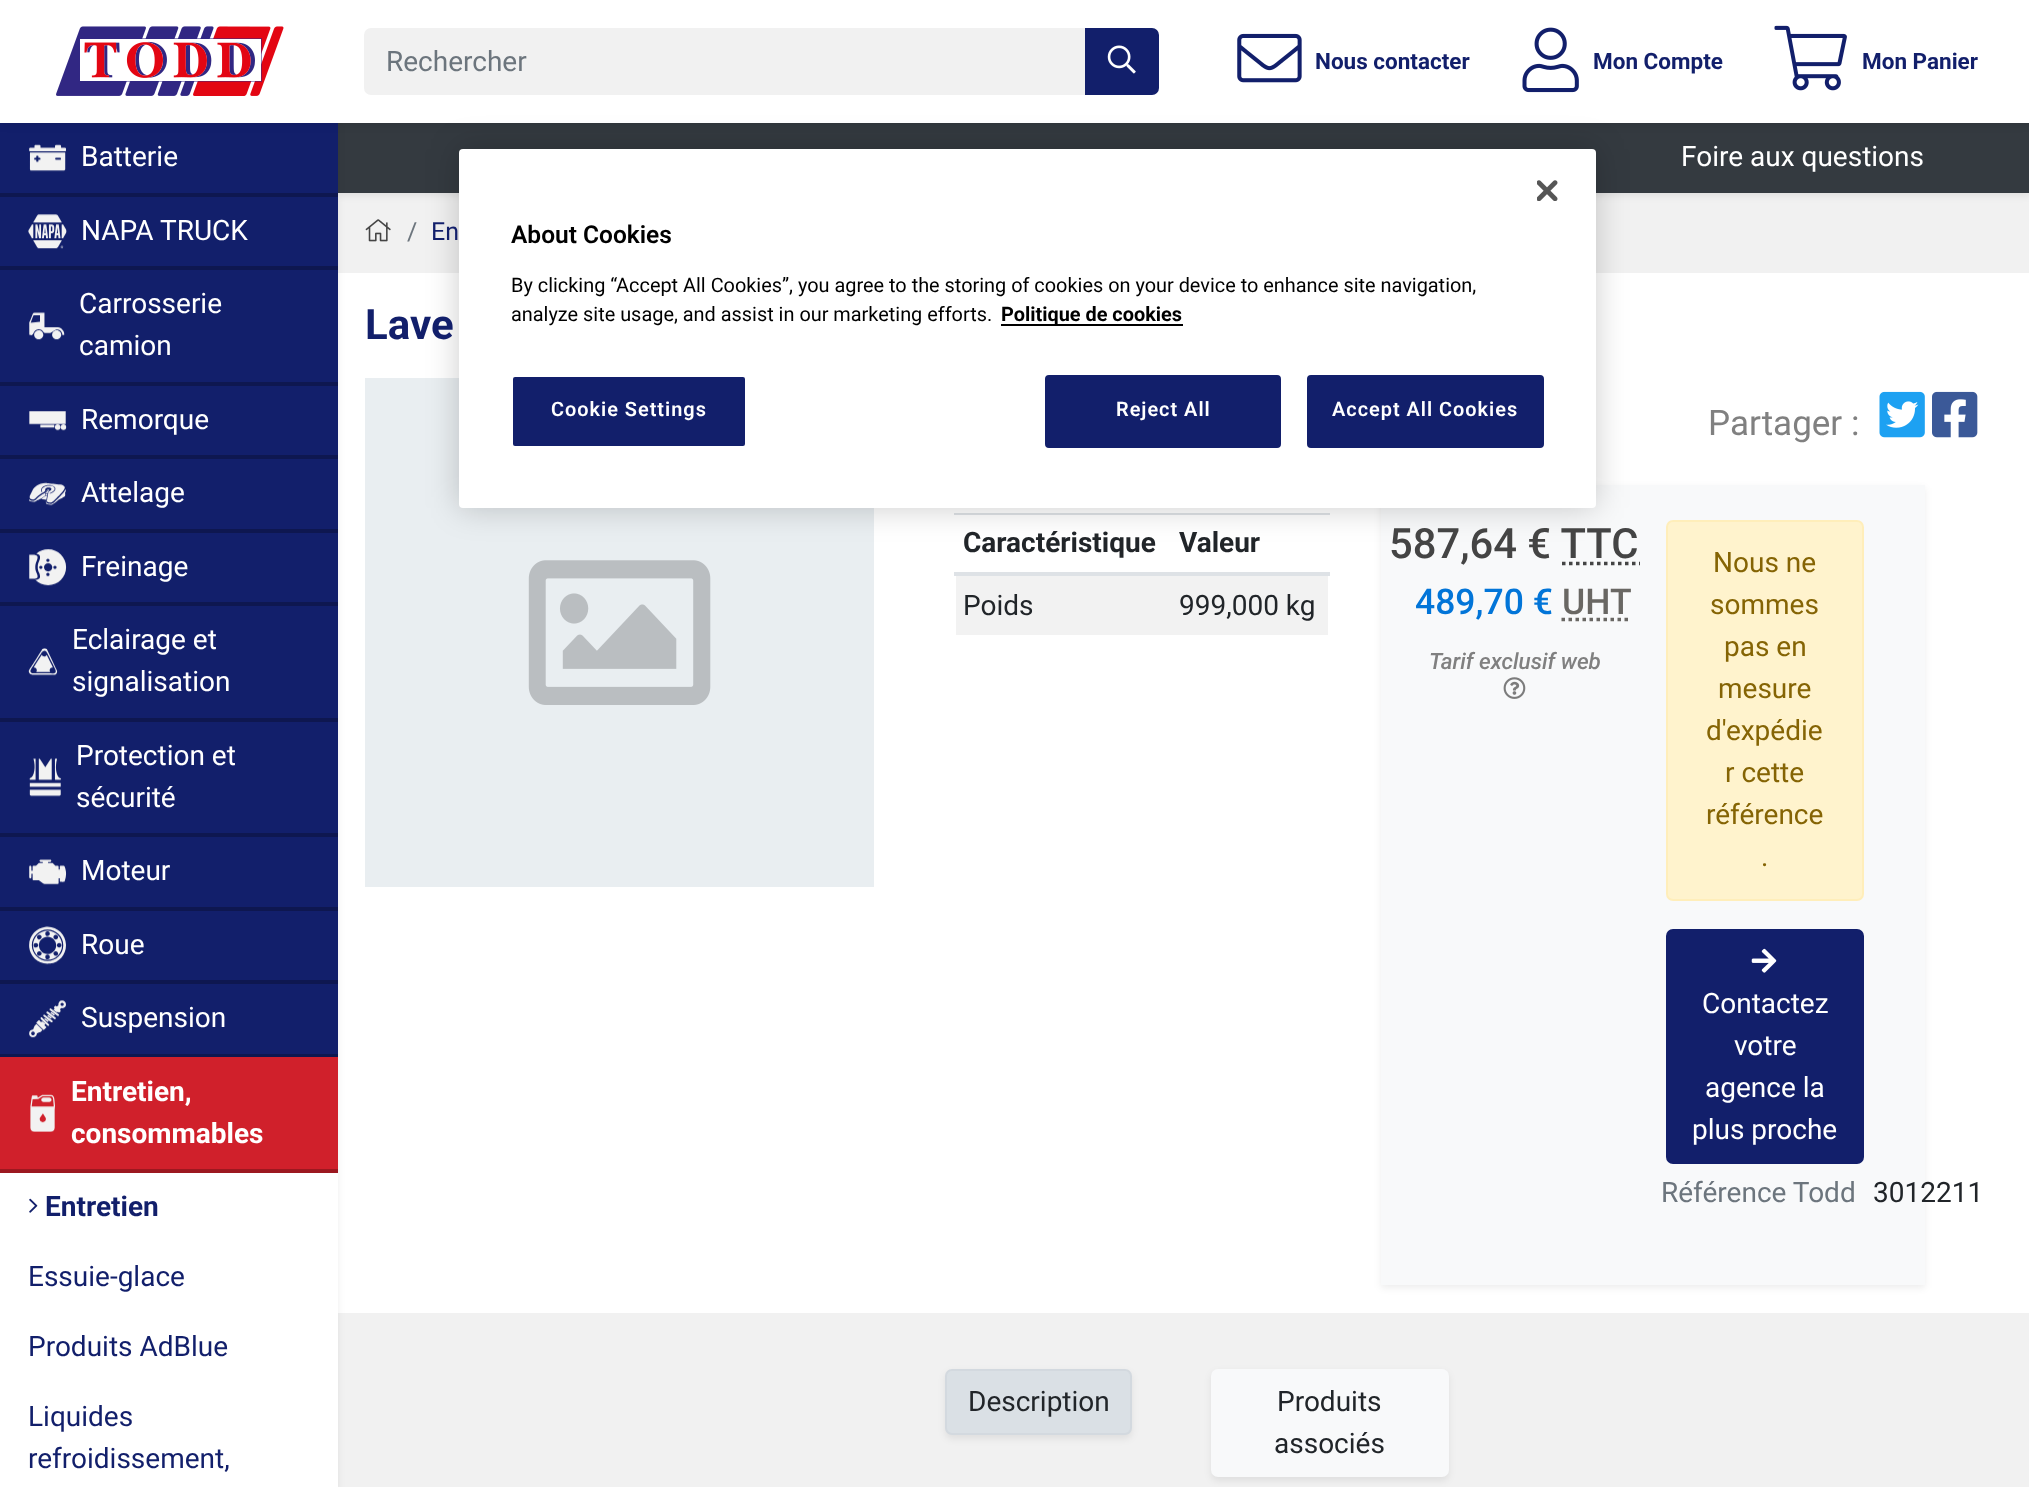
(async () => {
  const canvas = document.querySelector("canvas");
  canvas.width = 2029;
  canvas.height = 1487;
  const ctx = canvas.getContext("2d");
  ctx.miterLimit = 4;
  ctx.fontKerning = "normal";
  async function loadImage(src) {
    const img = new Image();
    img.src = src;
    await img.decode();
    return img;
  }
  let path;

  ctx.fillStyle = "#f1f1f1";
  ctx.fillRect(0, 0, 2029, 1487);
  ctx.fillStyle = "rgba(0, 0, 0, 0.07)";
  ctx.filter = "blur(3.5px)";
  ctx.beginPath();
  ctx.rect(338, 126, 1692, 70);
  ctx.fill();
  ctx.filter = "none";
  ctx.fillStyle = "#343a40";
  ctx.fillRect(338, 123, 1691, 70);
  ctx.fillStyle = "#ffffff";
  ctx.fillRect(338, 273, 1691, 1040);
  ctx.fillStyle = "rgba(0, 0, 0, 0.07)";
  ctx.filter = "blur(3.5px)";
  ctx.beginPath();
  ctx.rect(0, 126, 338, 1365);
  ctx.fill();
  ctx.filter = "none";
  ctx.fillStyle = "#121f6b";
  ctx.fillRect(0, 123, 338, 931);
  ctx.fillStyle = "rgba(0, 0, 0, 0.07)";
  ctx.filter = "blur(3.5px)";
  ctx.beginPath();
  ctx.rect(0, 4, 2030, 122);
  ctx.fill();
  ctx.filter = "none";
  ctx.fillStyle = "#ffffff";
  ctx.fillRect(0, 0, 2029, 123);
  ctx.drawImage(await loadImage("img/1.png"), 56, 26, 228, 70);
  ctx.fillStyle = "#f1f1f1";
  ctx.beginPath();
  ctx.roundRect(364, 28, 723, 67, [7, 0, 0, 7]);
  ctx.fill();
  ctx.fillStyle = "#121f6b";
  ctx.beginPath();
  ctx.roundRect(1086, 29, 72, 65, [0, 6, 6, 0]);
  ctx.fill();
  ctx.strokeStyle = "#121f6b";
  ctx.lineWidth = 2;
  ctx.stroke();
  ctx.drawImage(await loadImage("img/2.png"), 1107, 45, 29, 29);
  ctx.drawImage(await loadImage("img/3.png"), 1237, 33, 65, 50);
  ctx.drawImage(await loadImage("img/4.png"), 1522, 27, 57, 66);
  ctx.drawImage(await loadImage("img/5.png"), 1774, 25, 73, 66);
  ctx.fillStyle = "#0e1750";
  ctx.fillRect(0, 193, 338, 4);
  ctx.drawImage(await loadImage("img/6.png"), 29, 144, 37, 28);
  ctx.fillRect(0, 266, 338, 4);
  ctx.drawImage(await loadImage("img/7.png"), 28, 214, 39, 35);
  ctx.fillRect(0, 382, 338, 4);
  ctx.drawImage(await loadImage("img/8.png"), 29, 312, 36, 28);
  ctx.fillRect(0, 455, 338, 4);
  ctx.drawImage(await loadImage("img/9.png"), 29, 411, 38, 20);
  ctx.fillRect(0, 529, 338, 4);
  ctx.drawImage(await loadImage("img/10.png"), 29, 482, 37, 24);
  ctx.fillRect(0, 602, 338, 4);
  ctx.drawImage(await loadImage("img/11.png"), 29, 549, 38, 37);
  ctx.fillRect(0, 718, 338, 4);
  ctx.drawImage(await loadImage("img/12.png"), 28, 648, 30, 28);
  ctx.fillRect(0, 833, 338, 4);
  ctx.drawImage(await loadImage("img/13.png"), 29, 758, 32, 39);
  ctx.fillRect(0, 907, 338, 4);
  ctx.drawImage(await loadImage("img/14.png"), 29, 859, 38, 26);
  ctx.fillRect(0, 980, 338, 4);
  ctx.drawImage(await loadImage("img/15.png"), 29, 926, 37, 39);
  ctx.fillRect(0, 1054, 338, 3);
  ctx.drawImage(await loadImage("img/16.png"), 29, 1000, 37, 38);
  for (const [x, y, w, h, color] of [
    [0, 1173, 338, 314, "#ffffff"],
    [0, 1057, 338, 112, "#d0202b"],
    [0, 1169, 338, 4, "#9c1820"],
  ]) {
    ctx.fillStyle = color;
    ctx.fillRect(x, y, w, h);
  }
  ctx.drawImage(await loadImage("img/17.png"), 30, 1094, 25, 38);
  ctx.drawImage(await loadImage("img/18.png"), 29, 1198, 9, 15);
  ctx.drawImage(await loadImage("img/19.png"), 365, 219, 26, 23);
  ctx.drawImage(await loadImage("img/20.png"), 365, 378, 509, 509);
  ctx.drawImage(await loadImage("img/21.png"), 1879, 391, 46, 47);
  ctx.drawImage(await loadImage("img/22.png"), 1932, 391, 46, 47);
  for (const [x, y, w, h, color] of [
    [954, 513, 376, 2, "#dee2e6"],
    [954, 572, 376, 4, "#dee2e6"],
    [956, 576, 372, 59, "#f2f2f2"],
  ]) {
    ctx.fillStyle = color;
    ctx.fillRect(x, y, w, h);
  }
  ctx.fillStyle = "rgba(0, 0, 0, 0.07)";
  ctx.filter = "blur(3.5px)";
  ctx.beginPath();
  ctx.rect(1381, 488, 544, 800);
  ctx.fill();
  ctx.filter = "none";
  ctx.fillStyle = "#f8f9fa";
  ctx.fillRect(1381, 485, 544, 800);
  path = new Path2D("M1562 563.5H1640");
  ctx.strokeStyle = "#444444";
  ctx.lineWidth = 3.5;
  ctx.setLineDash([3.5, 3.5]);
  ctx.stroke(path);
  path = new Path2D("M1561.5 619.5H1631");
  ctx.strokeStyle = "#696763";
  ctx.stroke(path);
  ctx.drawImage(await loadImage("img/23.png"), 1503, 677, 23, 22);
  ctx.fillStyle = "#fff3cd";
  ctx.beginPath();
  ctx.roundRect(1667, 521, 196, 379, 6);
  ctx.fill();
  ctx.strokeStyle = "#ffeeba";
  ctx.lineWidth = 2;
  ctx.setLineDash([]);
  ctx.stroke();
  ctx.fillStyle = "#121f6b";
  ctx.beginPath();
  ctx.roundRect(1667, 930, 196, 233, 6);
  ctx.fill();
  ctx.strokeStyle = "#121f6b";
  ctx.stroke();
  ctx.drawImage(await loadImage("img/24.png"), 1751, 948, 26, 25);
  ctx.fillStyle = "rgba(0, 0, 0, 0.07)";
  ctx.filter = "blur(3.5px)";
  ctx.beginPath();
  ctx.roundRect(945, 1372, 187, 67, 7);
  ctx.fill();
  ctx.filter = "none";
  ctx.fillStyle = "#dae0e5";
  ctx.beginPath();
  ctx.roundRect(946, 1370, 185, 64, 6);
  ctx.fill();
  ctx.strokeStyle = "#d3d9df";
  ctx.stroke();
  ctx.fillStyle = "rgba(0, 0, 0, 0.07)";
  ctx.filter = "blur(3.5px)";
  ctx.beginPath();
  ctx.roundRect(1211, 1372, 238, 109, 7);
  ctx.fill();
  ctx.filter = "none";
  ctx.fillStyle = "#f8f9fa";
  ctx.beginPath();
  ctx.roundRect(1212, 1370, 236, 106, 6);
  ctx.fill();
  ctx.strokeStyle = "#f8f9fa";
  ctx.stroke();
  ctx.fillStyle = "rgba(0, 0, 0, 0.2)";
  ctx.filter = "blur(16px)";
  ctx.beginPath();
  ctx.roundRect(459, 149, 1137, 359, 4);
  ctx.fill();
  ctx.filter = "none";
  ctx.fillStyle = "#ffffff";
  ctx.beginPath();
  ctx.roundRect(459, 149, 1137, 359, 4);
  ctx.fill();
  ctx.drawImage(await loadImage("img/25.png"), 1537, 180, 21, 21);
  ctx.fillStyle = "#000000";
  ctx.fillRect(1001, 324, 182, 2);
  ctx.fillStyle = "#121f6b";
  ctx.beginPath();
  ctx.roundRect(512, 376, 234, 71, 3);
  ctx.fill();
  ctx.strokeStyle = "#ffffff";
  ctx.stroke();
  ctx.beginPath();
  ctx.roundRect(1046, 376, 234, 71, 3);
  ctx.fill();
  ctx.strokeStyle = "#121f6b";
  ctx.stroke();
  ctx.beginPath();
  ctx.roundRect(1308, 376, 235, 71, 3);
  ctx.fill();
  ctx.stroke();
  ctx.font = "28px Roboto";
  ctx.fillStyle = "#6c757d";
  ctx.fillText("Rechercher", 386, 71);
  ctx.font = "bold 22.5px Roboto";
  ctx.fillStyle = "#121f6b";
  for (const [text, x, y] of [
    ["Nous contacter", 1315, 69],
    ["Mon Compte", 1593, 69],
    ["Mon Panier", 1862, 69],
  ]) {
    ctx.fillText(text, x, y);
  }
  ctx.font = "28px Roboto";
  ctx.fillStyle = "#ffffff";
  for (const [text, x, y] of [
    ["Batterie", 81, 166],
    ["NAPA TRUCK", 81, 240],
    ["Carrosserie", 79, 313],
    ["camion", 79, 355],
    ["Remorque", 81, 429],
    ["Attelage", 81, 502],
    ["Freinage", 81, 576],
    ["Eclairage et", 72, 649],
    ["signalisation", 72, 691],
    ["Protection et", 76, 765],
    ["sécurité", 76, 807],
    ["Moteur", 81, 880],
    ["Roue", 81, 954],
    ["Suspension", 81, 1027],
  ]) {
    ctx.fillText(text, x, y);
  }
  ctx.font = "bold 28px Roboto";
  ctx.fillText("Entretien,", 71, 1101);
  ctx.fillText("consommables", 71, 1143);
  ctx.fillStyle = "#121f6b";
  ctx.fillText("Entretien", 45, 1216);
  ctx.font = "28px Roboto";
  for (const [text, x, y] of [
    ["Essuie-glace", 28, 1286],
    ["Produits AdBlue", 28, 1356],
    ["Liquides", 28, 1426],
    ["refroidissement,", 28, 1468],
  ]) {
    ctx.fillText(text, x, y);
  }
  ctx.fillStyle = "#ffffff";
  ctx.fillText("Foire aux questions", 1681, 166);
  ctx.font = "25px Roboto";
  ctx.fillStyle = "#6c757d";
  ctx.fillText("/", 407, 240);
  ctx.fillStyle = "#121f6b";
  ctx.fillText("En", 431, 240);
  ctx.font = "bold 42px Roboto";
  ctx.fillText("Lave", 365, 339);
  ctx.font = "35px Roboto";
  ctx.fillStyle = "#808080";
  ctx.fillText("Partager :", 1708, 435);
  ctx.font = "bold 28px Roboto";
  ctx.fillStyle = "#212529";
  ctx.fillText("Caractéristique", 963, 552);
  ctx.fillText("Valeur", 1179, 552);
  ctx.font = "28px Roboto";
  ctx.fillText("Poids", 963, 615);
  ctx.fillText("999,000 kg", 1179, 615);
  ctx.font = "500 41.75px Roboto";
  ctx.fillStyle = "#444444";
  ctx.fillText("587,64 € TTC", 1389, 558);
  ctx.font = "500 35.5px Roboto";
  ctx.fillStyle = "#0275d8";
  ctx.fillText("489,70 €", 1415, 614);
  ctx.fillStyle = "#696763";
  ctx.fillText("UHT", 1562, 614);
  ctx.font = "italic 500 22.5px Roboto";
  ctx.fillStyle = "#808080";
  ctx.fillText("Tarif exclusif web", 1429, 669);
  ctx.font = "28px Roboto";
  ctx.fillStyle = "#856404";
  for (const [text, x, y] of [
    ["Nous ne", 1713, 572],
    ["sommes", 1710, 614],
    ["pas en", 1724, 656],
    ["mesure", 1718, 698],
    ["d'expédie", 1706, 740],
    ["r cette", 1725, 782],
    ["référence", 1706, 824],
    [".", 1761, 866],
  ]) {
    ctx.fillText(text, x, y);
  }
  ctx.fillStyle = "#ffffff";
  for (const [text, x, y] of [
    ["Contactez", 1702, 1013],
    ["votre", 1734, 1055],
    ["agence la", 1705, 1097],
    ["plus proche", 1692, 1139],
  ]) {
    ctx.fillText(text, x, y);
  }
  ctx.fillStyle = "#6c757d";
  ctx.fillText("Référence Todd", 1661, 1202);
  ctx.fillStyle = "#212529";
  for (const [text, x, y] of [
    ["3012211", 1873, 1202],
    ["Description", 968, 1411],
    ["Produits", 1277, 1411],
    ["associés", 1274, 1453],
  ]) {
    ctx.fillText(text, x, y);
  }
  ctx.font = "600 24.5px Roboto";
  ctx.fillStyle = "#000000";
  ctx.fillText("About Cookies", 511, 243);
  ctx.font = "19.9px Roboto";
  ctx.fillText("By clicking “Accept All Cookies”, you agree to the storing of cookies on your device to enhance site navigation,", 511, 292);
  ctx.fillText("analyze site usage, and assist in our marketing efforts.", 511, 321);
  ctx.font = "bold 19.9px Roboto";
  ctx.fillText("Politique de cookies", 1001, 321);
  ctx.letterSpacing = "1px";
  ctx.font = "600 19.9px Roboto";
  ctx.fillStyle = "#ffffff";
  for (const [text, x, y] of [
    ["Cookie Settings", 551, 416],
    ["Reject All", 1116, 416],
    ["Accept All Cookies", 1332, 416],
  ]) {
    ctx.fillText(text, x, y);
  }
})();
